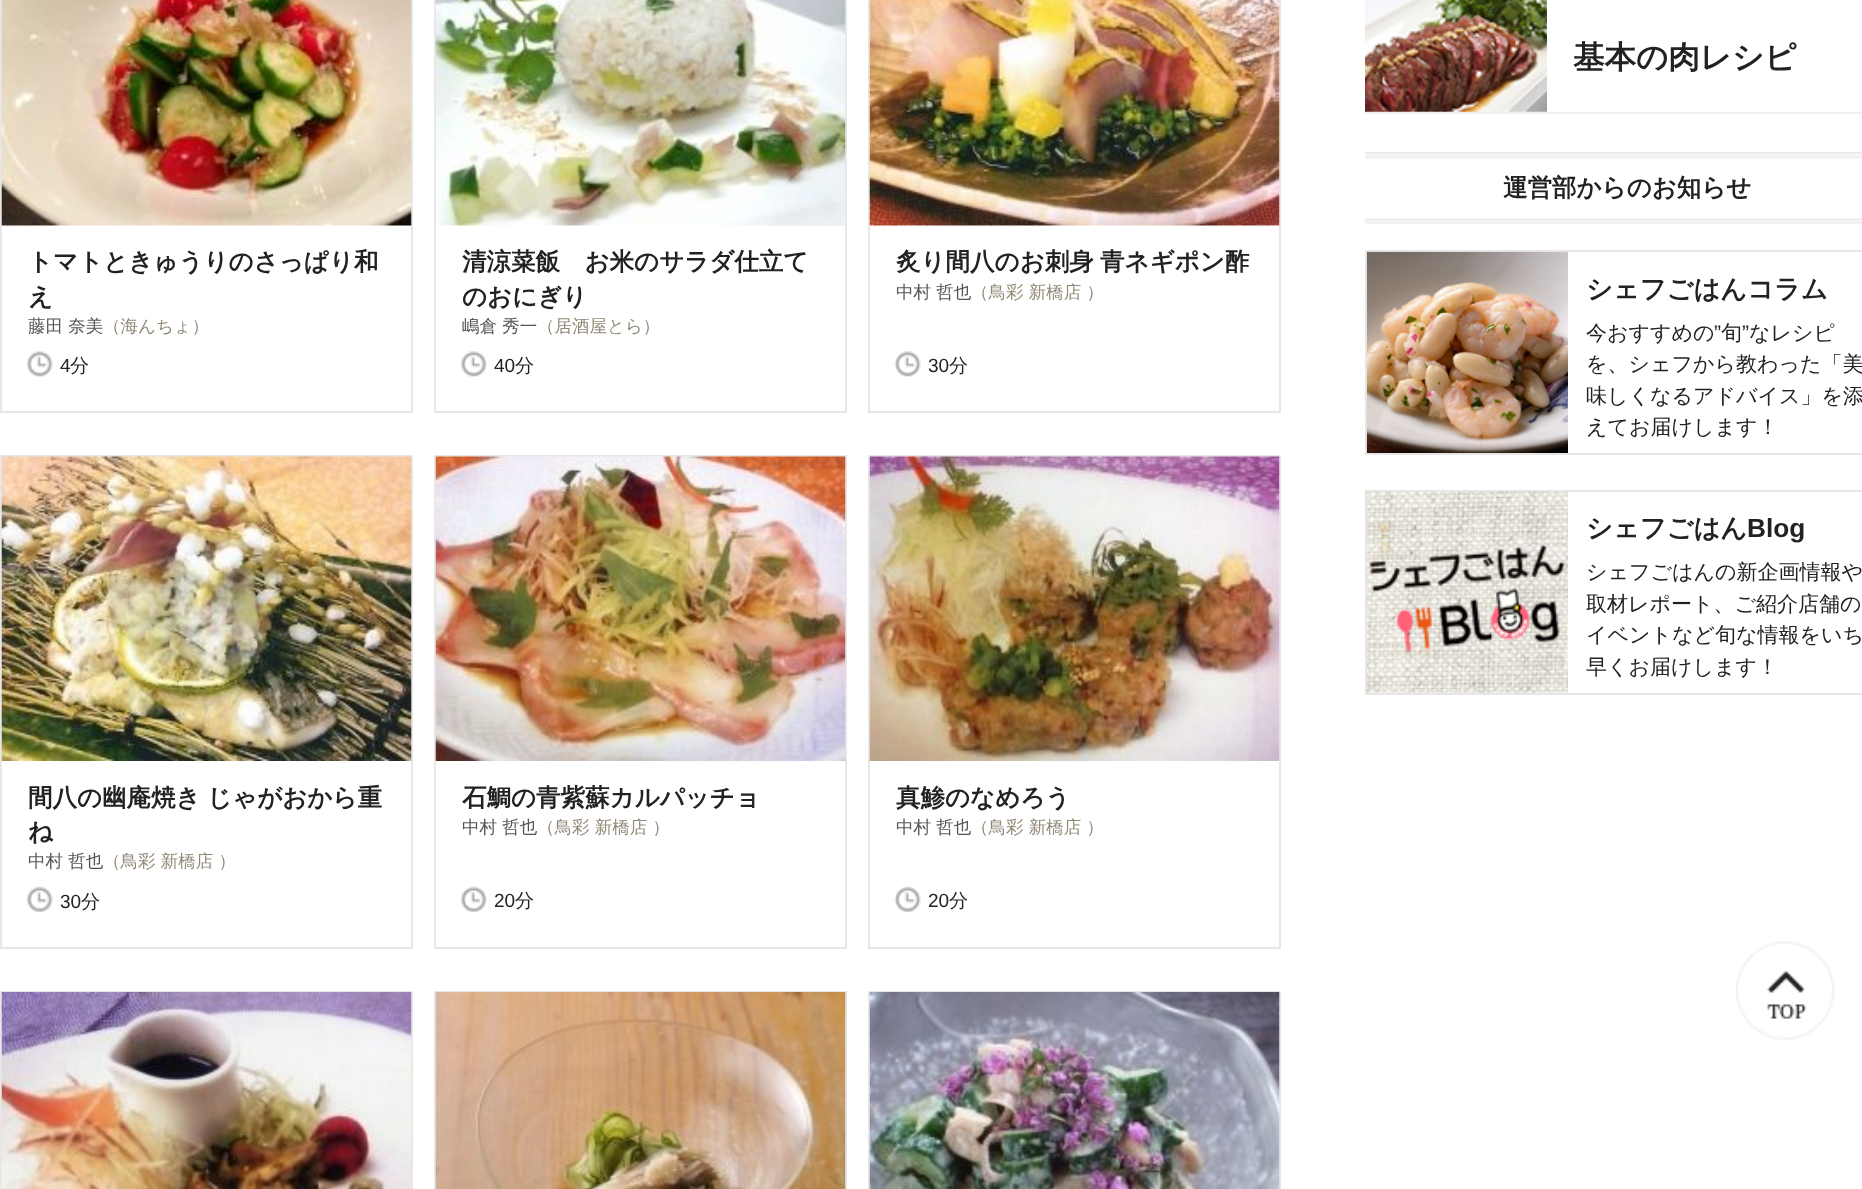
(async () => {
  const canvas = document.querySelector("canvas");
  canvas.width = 1862;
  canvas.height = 1189;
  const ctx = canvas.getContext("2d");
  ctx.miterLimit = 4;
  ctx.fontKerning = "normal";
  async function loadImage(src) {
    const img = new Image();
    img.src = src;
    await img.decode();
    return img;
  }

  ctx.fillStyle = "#ffffff";
  ctx.fillRect(0, 0, 1862, 1189);
  ctx.strokeStyle = "#e7e7e7";
  ctx.lineWidth = 2;
  ctx.strokeRect(1, -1, 411, 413);
  ctx.drawImage(await loadImage("img/1.png"), 1, 0, 411, 226);
  ctx.drawImage(await loadImage("img/2.png"), 26, 351, 27, 26);
  ctx.strokeRect(435, -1, 411, 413);
  ctx.drawImage(await loadImage("img/3.png"), 435, 0, 411, 226);
  ctx.drawImage(await loadImage("img/2.png"), 460, 351, 27, 26);
  ctx.strokeRect(869, -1, 411, 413);
  ctx.drawImage(await loadImage("img/4.png"), 869, 0, 411, 226);
  ctx.drawImage(await loadImage("img/2.png"), 894, 351, 27, 26);
  ctx.strokeRect(1, 456, 411, 492);
  ctx.drawImage(await loadImage("img/5.png"), 1, 456, 411, 305);
  ctx.drawImage(await loadImage("img/6.png"), 26, 886, 27, 26);
  ctx.strokeRect(435, 456, 411, 492);
  ctx.drawImage(await loadImage("img/7.png"), 435, 456, 411, 305);
  ctx.drawImage(await loadImage("img/6.png"), 460, 886, 27, 26);
  ctx.strokeRect(869, 456, 411, 492);
  ctx.drawImage(await loadImage("img/8.png"), 869, 456, 411, 305);
  ctx.drawImage(await loadImage("img/6.png"), 894, 886, 27, 26);
  ctx.strokeRect(1, 992, 411, 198);
  ctx.drawImage(await loadImage("img/9.png"), 1, 992, 411, 197);
  ctx.strokeRect(435, 992, 411, 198);
  ctx.drawImage(await loadImage("img/10.png"), 435, 992, 411, 197);
  ctx.strokeRect(869, 992, 411, 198);
  ctx.drawImage(await loadImage("img/11.png"), 869, 992, 411, 197);
  ctx.fillStyle = "#f0f0f0";
  ctx.fillRect(1365, 112, 497, 2);
  ctx.drawImage(await loadImage("img/12.png"), 1365, 0, 182, 112);
  ctx.drawImage(await loadImage("img/13.png"), 1365, 218, 497, 6);
  ctx.drawImage(await loadImage("img/14.png"), 1365, 152, 497, 7);
  ctx.strokeStyle = "#e6e6e6";
  ctx.strokeRect(1366, 251, 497, 203);
  ctx.drawImage(await loadImage("img/15.png"), 1366, 251, 202, 202);
  ctx.strokeRect(1366, 491, 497, 203);
  ctx.drawImage(await loadImage("img/16.png"), 1367, 491, 201, 202);
  ctx.drawImage(await loadImage("img/17.png"), 1736, 941, 98, 99);
  ctx.font = "bold 24.5px WenQuanYi Zen Hei";
  ctx.fillStyle = "#222222";
  ctx.fillText("トマトときゅうりのさっぱり和", 28, 270);
  ctx.fillText("え", 28, 305);
  ctx.font = "500 17.5px WenQuanYi Zen Hei";
  ctx.fillStyle = "#555555";
  ctx.fillText("藤田 奈美", 28, 332);
  ctx.fillStyle = "#938978";
  ctx.fillText("（海んちょ）", 103, 332);
  ctx.font = "19px Liberation Sans";
  ctx.fillStyle = "#222222";
  ctx.fillText("4", 60, 372);
  ctx.font = "500 19px WenQuanYi Zen Hei";
  ctx.fillText("分", 70, 372);
  ctx.font = "bold 24.5px WenQuanYi Zen Hei";
  ctx.fillText("清涼菜飯　お米のサラダ仕立て", 462, 270);
  ctx.fillText("のおにぎり", 462, 305);
  ctx.font = "500 17.5px WenQuanYi Zen Hei";
  ctx.fillStyle = "#555555";
  ctx.fillText("嶋倉 秀一", 462, 332);
  ctx.fillStyle = "#938978";
  ctx.fillText("（居酒屋とら）", 537, 332);
  ctx.font = "19px Liberation Sans";
  ctx.fillStyle = "#222222";
  ctx.fillText("40", 494, 372);
  ctx.font = "500 19px WenQuanYi Zen Hei";
  ctx.fillText("分", 515, 372);
  ctx.wordSpacing = "-1px";
  ctx.font = "bold 24.5px WenQuanYi Zen Hei";
  ctx.fillText("炙り間八のお刺身 青ネギポン酢", 896, 270);
  ctx.wordSpacing = "0px";
  ctx.font = "500 17.5px WenQuanYi Zen Hei";
  ctx.fillStyle = "#555555";
  ctx.fillText("中村 哲也", 896, 298);
  ctx.fillStyle = "#938978";
  ctx.fillText("（鳥彩 新橋店 ）", 971, 298);
  ctx.font = "19px Liberation Sans";
  ctx.fillStyle = "#222222";
  ctx.fillText("30", 928, 372);
  ctx.font = "500 19px WenQuanYi Zen Hei";
  ctx.fillText("分", 949, 372);
  ctx.wordSpacing = "-1px";
  ctx.font = "bold 24.5px WenQuanYi Zen Hei";
  ctx.fillText("間八の幽庵焼き じゃがおから重", 28, 806);
  ctx.wordSpacing = "0px";
  ctx.fillText("ね", 28, 840);
  ctx.font = "500 17.5px WenQuanYi Zen Hei";
  ctx.fillStyle = "#555555";
  ctx.fillText("中村 哲也", 28, 867);
  ctx.fillStyle = "#938978";
  ctx.fillText("（鳥彩 新橋店 ）", 103, 867);
  ctx.font = "19px Liberation Sans";
  ctx.fillStyle = "#222222";
  ctx.fillText("30", 60, 908);
  ctx.font = "500 19px WenQuanYi Zen Hei";
  ctx.fillText("分", 81, 908);
  ctx.font = "bold 24.5px WenQuanYi Zen Hei";
  ctx.fillText("石鯛の青紫蘇カルパッチョ", 462, 806);
  ctx.font = "500 17.5px WenQuanYi Zen Hei";
  ctx.fillStyle = "#555555";
  ctx.fillText("中村 哲也", 462, 833);
  ctx.fillStyle = "#938978";
  ctx.fillText("（鳥彩 新橋店 ）", 537, 833);
  ctx.font = "19px Liberation Sans";
  ctx.fillStyle = "#222222";
  ctx.fillText("20", 494, 907);
  ctx.font = "500 19px WenQuanYi Zen Hei";
  ctx.fillText("分", 515, 907);
  ctx.font = "bold 24.5px WenQuanYi Zen Hei";
  ctx.fillText("真鯵のなめろう", 896, 806);
  ctx.font = "500 17.5px WenQuanYi Zen Hei";
  ctx.fillStyle = "#555555";
  ctx.fillText("中村 哲也", 896, 833);
  ctx.fillStyle = "#938978";
  ctx.fillText("（鳥彩 新橋店 ）", 971, 833);
  ctx.font = "19px Liberation Sans";
  ctx.fillStyle = "#222222";
  ctx.fillText("20", 928, 907);
  ctx.font = "500 19px WenQuanYi Zen Hei";
  ctx.fillText("分", 949, 907);
  ctx.font = "bold 31.5px WenQuanYi Zen Hei";
  ctx.fillText("基本の肉レシピ", 1573, 68);
  ctx.font = "bold 24.5px WenQuanYi Zen Hei";
  ctx.fillText("運営部からのお知らせ", 1503, 196);
  ctx.font = "bold 26.25px WenQuanYi Zen Hei";
  ctx.fillText("シェフごはんコラム", 1586, 298);
  ctx.font = "500 21px WenQuanYi Zen Hei";
  ctx.fillText("今おすすめの", 1586, 340);
  ctx.font = "21px Liberation Sans";
  ctx.fillText("”", 1714, 340);
  ctx.font = "500 21px WenQuanYi Zen Hei";
  ctx.fillText("旬", 1721, 340);
  ctx.font = "21px Liberation Sans";
  ctx.fillText("”", 1742, 340);
  ctx.font = "500 21px WenQuanYi Zen Hei";
  for (const [text, x, y] of [
    ["なレシピ", 1749, 340],
    ["を、シェフから教わった「美", 1586, 371],
    ["味しくなるアドバイス」を添", 1586, 403],
    ["えてお届けします！", 1586, 434],
  ]) {
    ctx.fillText(text, x, y);
  }
  ctx.font = "bold 26.25px WenQuanYi Zen Hei";
  ctx.fillText("シェフごはん", 1586, 537);
  ctx.font = "bold 26.25px Liberation Sans";
  ctx.fillText("Blog", 1747, 537);
  ctx.font = "500 21px WenQuanYi Zen Hei";
  for (const [text, x, y] of [
    ["シェフごはんの新企画情報や", 1586, 579],
    ["取材レポート、ご紹介店舗の", 1586, 611],
    ["イベントなど旬な情報をいち", 1586, 642],
    ["早くお届けします！", 1586, 674],
  ]) {
    ctx.fillText(text, x, y);
  }
})();
